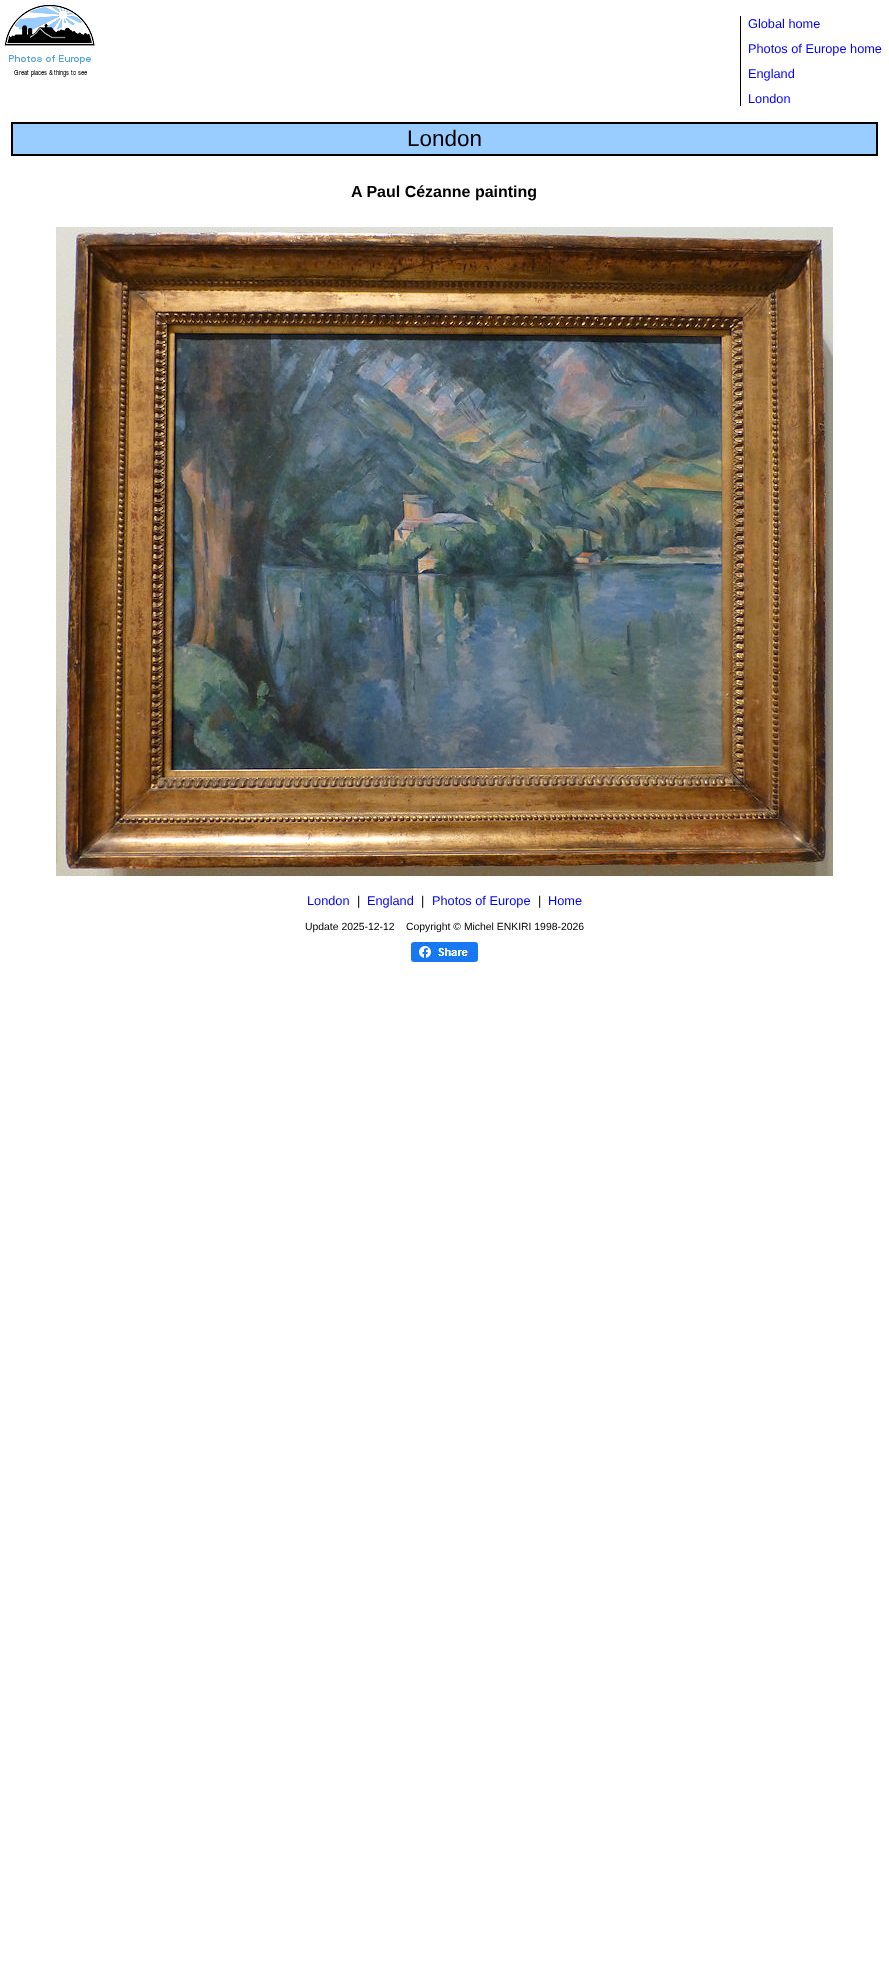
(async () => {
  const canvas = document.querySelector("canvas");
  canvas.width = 889;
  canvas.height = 1973;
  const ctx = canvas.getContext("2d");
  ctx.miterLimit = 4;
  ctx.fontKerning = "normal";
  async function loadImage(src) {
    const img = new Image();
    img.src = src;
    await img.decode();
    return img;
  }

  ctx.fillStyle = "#ffffff";
  ctx.fillRect(0, 0, 889, 1973);
  ctx.drawImage(await loadImage("img/1.png"), 4, 5, 91, 72);
  ctx.fillStyle = "#000000";
  ctx.fillRect(740, 16, 1, 90);
  ctx.fillStyle = "#99ccff";
  ctx.beginPath();
  ctx.rect(12, 123, 865, 32);
  ctx.fill();
  ctx.strokeStyle = "#000000";
  ctx.lineWidth = 2;
  ctx.stroke();
  ctx.drawImage(await loadImage("img/2.png"), 56, 227, 777, 649);
  ctx.drawImage(await loadImage("img/3.png"), 411, 942, 67, 20);
  ctx.font = "12.75px Liberation Sans";
  ctx.fillStyle = "#0000ff";
  for (const [text, x, y] of [
    ["Global home", 748, 28],
    ["Photos of Europe home", 748, 53],
    ["England", 748, 78],
    ["London", 748, 103],
  ]) {
    ctx.fillText(text, x, y);
  }
  ctx.font = "22.5px Liberation Sans";
  ctx.fillStyle = "#000000";
  ctx.fillText("London", 407, 146);
  ctx.font = "bold 16px Liberation Sans";
  ctx.fillText("A Paul Cézanne painting", 351, 197);
  ctx.font = "12.75px Liberation Sans";
  ctx.fillStyle = "#0000ff";
  ctx.fillText("London", 307, 905);
  ctx.fillStyle = "#000000";
  ctx.fillText("|", 357, 905);
  ctx.fillStyle = "#0000ff";
  ctx.fillText("England", 367, 905);
  ctx.fillStyle = "#000000";
  ctx.fillText("|", 421, 905);
  ctx.fillStyle = "#0000ff";
  ctx.fillText("Photos of Europe", 432, 905);
  ctx.fillStyle = "#000000";
  ctx.fillText("|", 538, 905);
  ctx.fillStyle = "#0000ff";
  ctx.fillText("Home", 548, 905);
  ctx.font = "10.4px Liberation Sans";
  ctx.fillStyle = "#000000";
  ctx.fillText("Update 2025-12-12", 305, 930);
  ctx.fillText("Copyright © Michel ENKIRI 1998-2026", 406, 930);
})();
